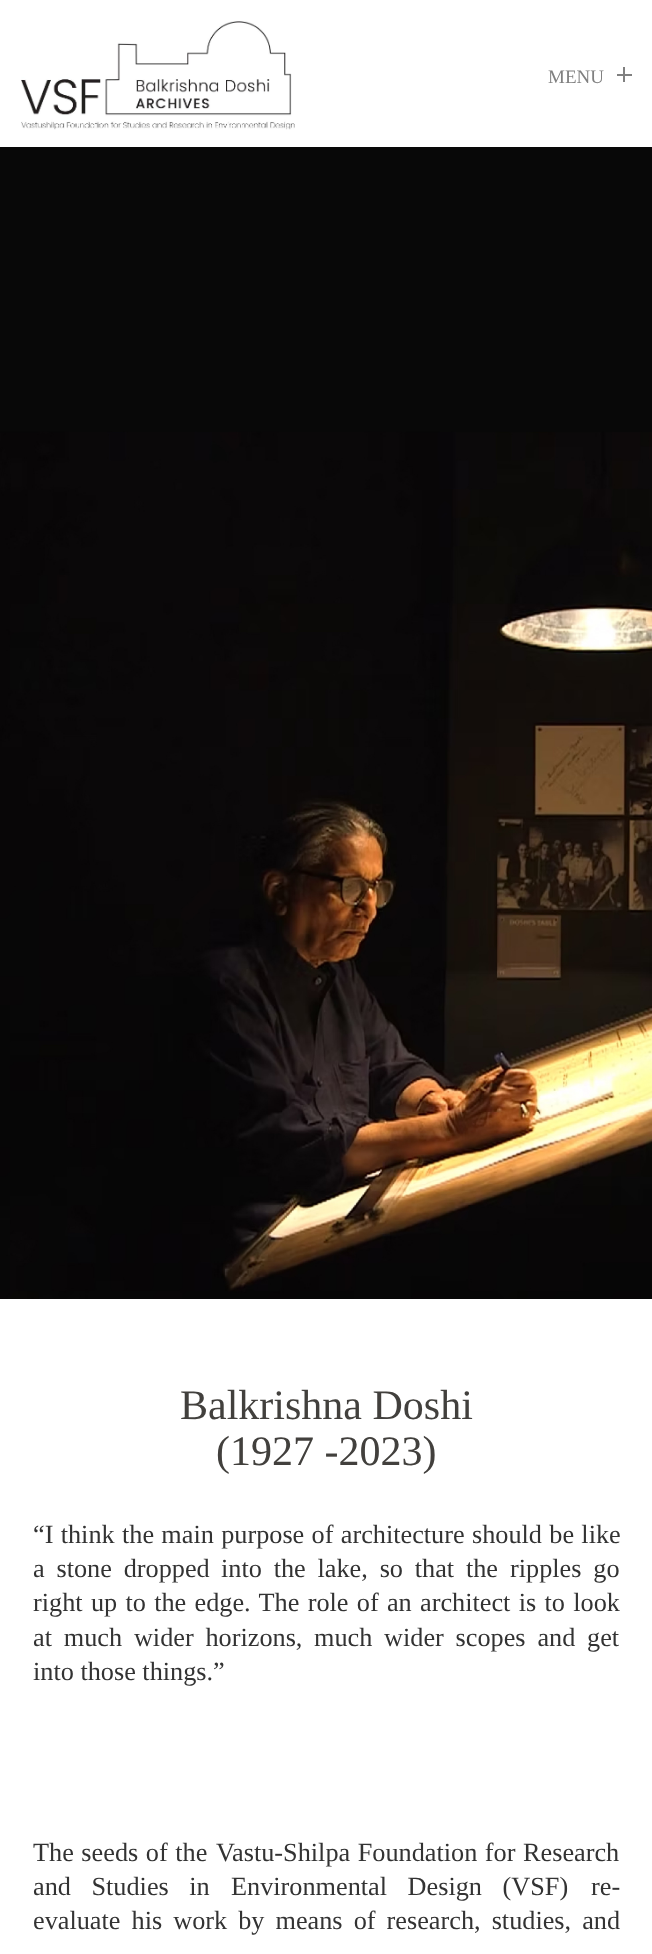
(async () => {
  const canvas = document.querySelector("canvas");
  canvas.width = 652;
  canvas.height = 1954;
  const ctx = canvas.getContext("2d");
  ctx.miterLimit = 4;
  ctx.fontKerning = "normal";
  async function loadImage(src) {
    const img = new Image();
    img.src = src;
    await img.decode();
    return img;
  }

  ctx.fillStyle = "#ffffff";
  ctx.fillRect(0, 0, 652, 1954);
  ctx.drawImage(await loadImage("img/1.png"), 21, 21, 274, 109);
  ctx.fillStyle = "#808080";
  ctx.fillRect(617, 74, 15, 2);
  ctx.fillRect(623, 67, 2, 15);
  ctx.drawImage(await loadImage("img/2.png"), 0, 147, 652, 1152);
  ctx.font = "19px Liberation Serif";
  ctx.fillText("MENU", 548, 83);
  ctx.font = "42px Liberation Serif";
  ctx.fillStyle = "#42403d";
  ctx.fillText("Balkrishna Doshi", 180, 1419);
  ctx.fillText("(1927 -2023)", 216, 1465);
  ctx.wordSpacing = "0.75px";
  ctx.font = "26.25px Liberation Serif";
  ctx.fillStyle = "#333333";
  ctx.fillText("“I think the main purpose of architecture should be like", 33, 1543);
  ctx.wordSpacing = "5.25px";
  for (const [text, x, y] of [
    ["a stone dropped", 33, 1577],
    ["into the lake, so that the", 221, 1577],
    ["ripples go", 510, 1577],
  ]) {
    ctx.fillText(text, x, y);
  }
  ctx.wordSpacing = "1.75px";
  ctx.fillText("right up to the edge. The role of an architect is to look", 33, 1611);
  ctx.wordSpacing = "5.25px";
  ctx.fillText("at much wider horizons,", 33, 1646);
  ctx.wordSpacing = "0px";
  ctx.fillText("much", 314, 1646);
  ctx.wordSpacing = "5.25px";
  ctx.fillText("wider scopes and get", 384, 1646);
  ctx.wordSpacing = "0px";
  ctx.fillText("into those things.”", 33, 1680);
  ctx.wordSpacing = "1px";
  ctx.fillText("The seeds of the", 33, 1861);
  ctx.fillText("Vastu-Shilpa Foundation for Research", 216, 1861);
  ctx.wordSpacing = "14px";
  ctx.fillText("and Studies in", 33, 1895);
  ctx.fillText("Environmental Design (VSF)", 231, 1895);
  ctx.wordSpacing = "0px";
  ctx.fillText("re-", 591, 1895);
  ctx.wordSpacing = "4.5px";
  ctx.fillText("evaluate his work by means of research, studies, and", 33, 1929);
})();
